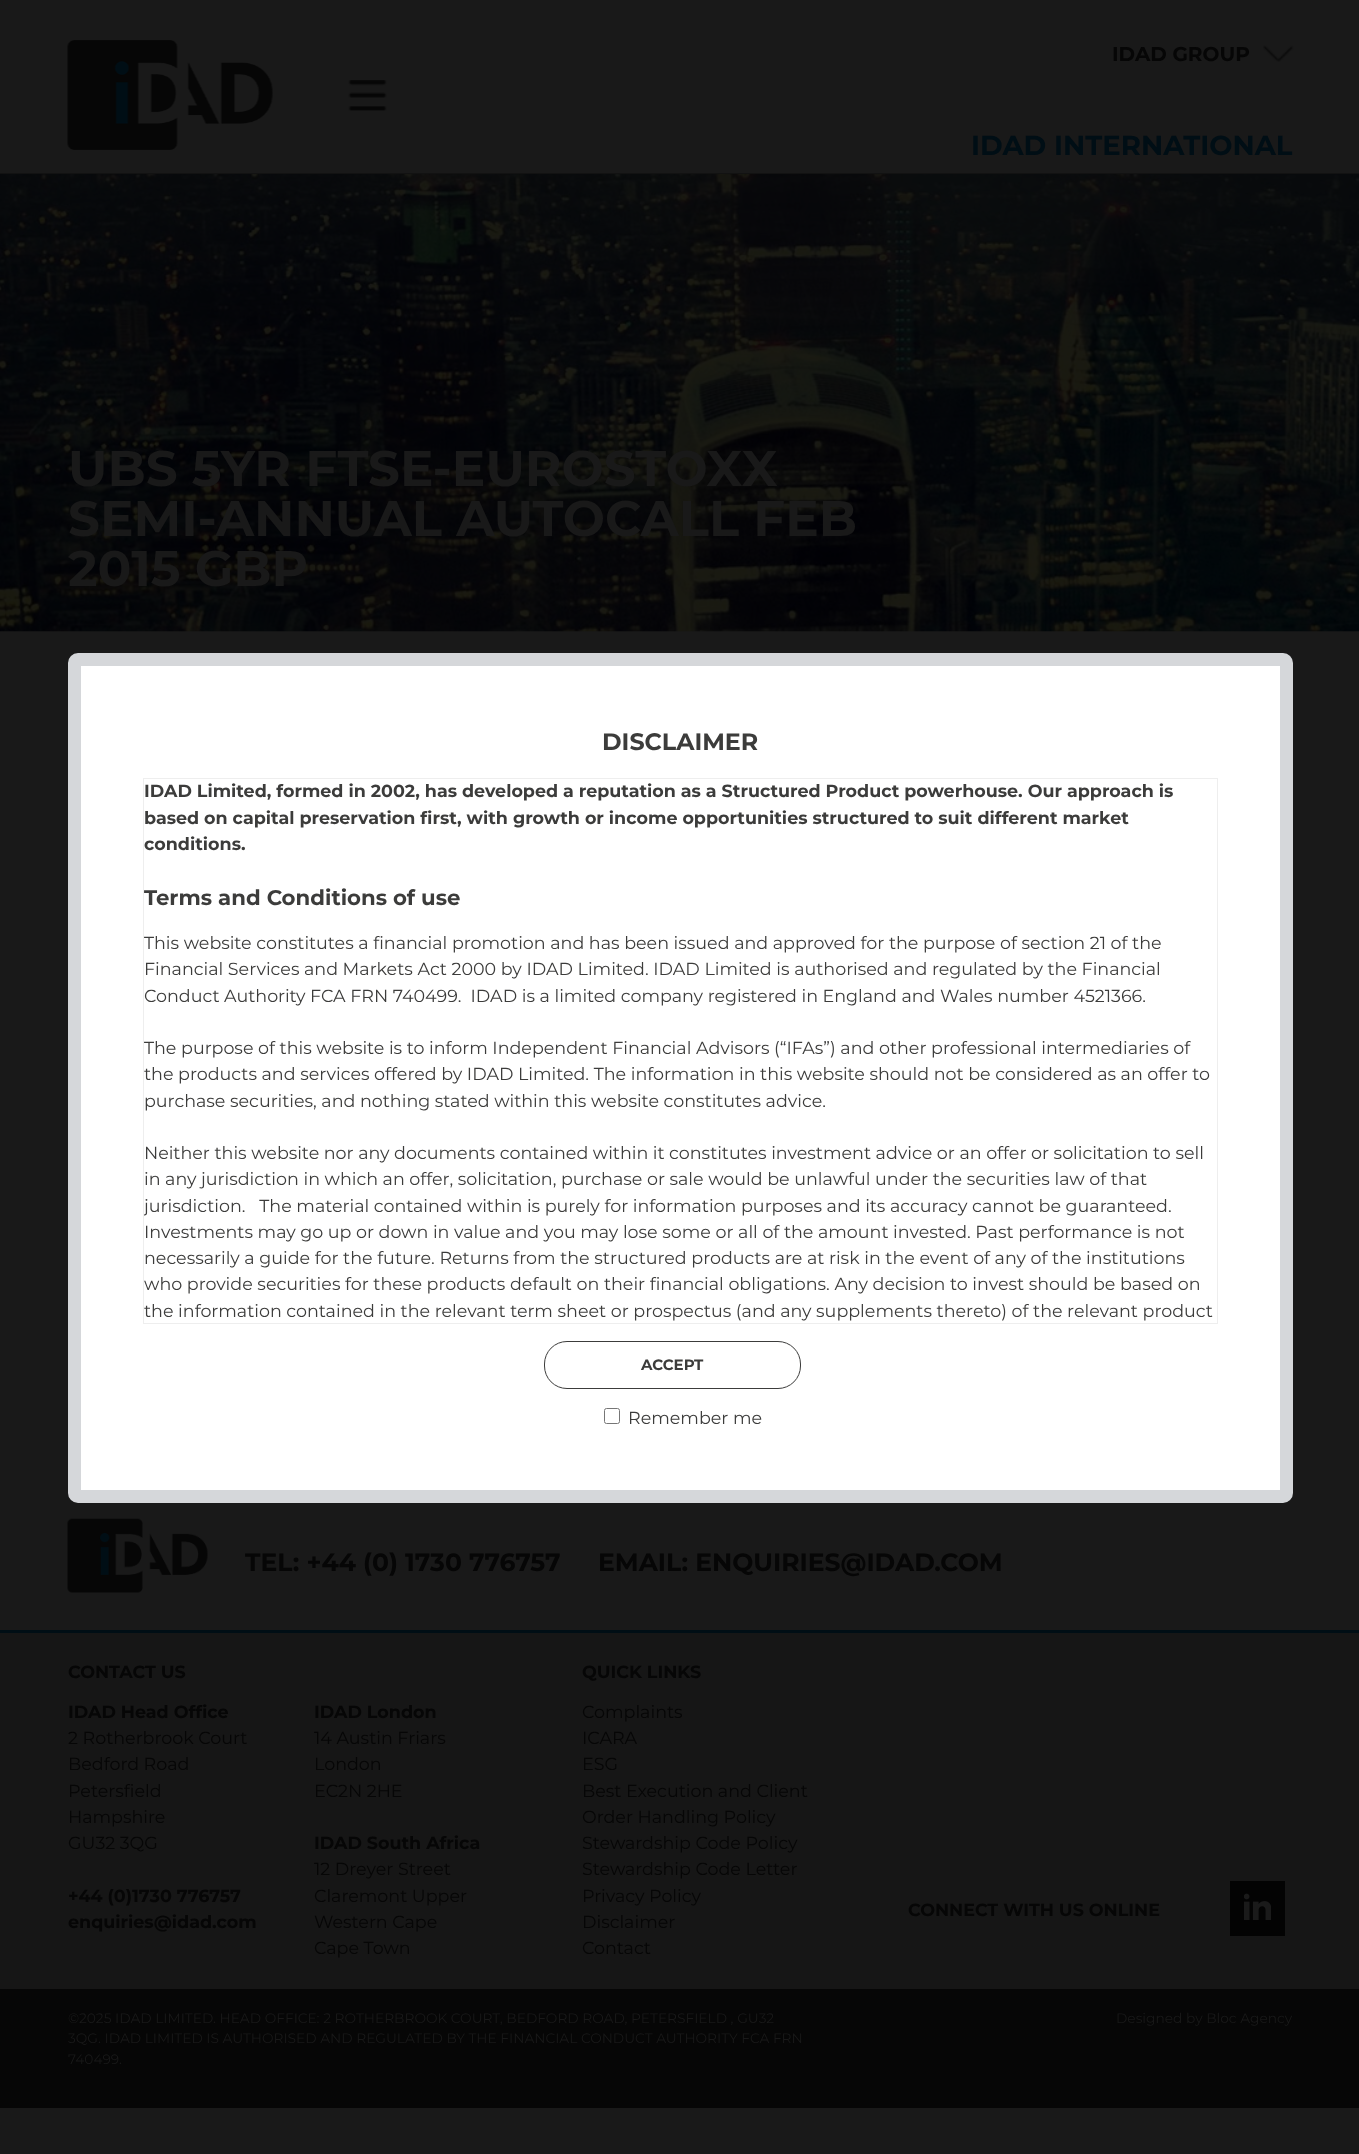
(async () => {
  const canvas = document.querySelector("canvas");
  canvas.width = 1359;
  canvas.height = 2154;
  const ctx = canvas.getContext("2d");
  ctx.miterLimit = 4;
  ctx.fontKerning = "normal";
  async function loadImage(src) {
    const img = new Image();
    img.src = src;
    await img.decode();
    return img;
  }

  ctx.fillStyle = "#191919";
  ctx.fillRect(0, 0, 1359, 2154);
  ctx.fillStyle = "#121212";
  ctx.fillRect(0, 173, 1359, 1);
  ctx.drawImage(await loadImage("img/1.png"), 67, 40, 206, 110);
  ctx.drawImage(await loadImage("img/2.png"), 1263, 45, 31, 17);
  ctx.drawImage(await loadImage("img/3.png"), 348, 80, 39, 31);
  ctx.drawImage(await loadImage("img/4.png"), 0, 174, 1359, 458);
  ctx.fillStyle = "#ffffff";
  ctx.beginPath();
  ctx.roundRect(74.5, 659.5, 1212, 837, 3.5);
  ctx.fill();
  ctx.strokeStyle = "#d5d7da";
  ctx.lineWidth = 13;
  ctx.stroke();
  ctx.strokeStyle = "#eeeeee";
  ctx.lineWidth = 1;
  ctx.strokeRect(143.5, 778.5, 1074, 545);
  ctx.beginPath();
  ctx.roundRect(544.5, 1341.5, 256, 47, 22.5);
  ctx.strokeStyle = "#3c3c3b";
  ctx.stroke();
  ctx.beginPath();
  ctx.roundRect(604.5, 1408.5, 15, 15, 2);
  ctx.strokeStyle = "#767676";
  ctx.stroke();
  ctx.drawImage(await loadImage("img/5.png"), 67, 1518, 141, 75);
  for (const [x, y, w, h, color] of [
    [0, 1633, 1359, 356, "#161616"],
    [0, 1630, 1359, 3, "#000e15"],
    [1230, 1881, 55, 55, "#030303"],
  ]) {
    ctx.fillStyle = color;
    ctx.fillRect(x, y, w, h);
  }
  ctx.drawImage(await loadImage("img/6.png"), 1244, 1893, 27, 27);
  ctx.fillStyle = "#060606";
  ctx.fillRect(0, 1989, 1359, 119);
  ctx.font = "bold 20px Montserrat";
  ctx.fillText("IDAD GROUP", 1112, 61);
  ctx.font = "bold 27.5px Montserrat";
  ctx.fillStyle = "#000e15";
  ctx.fillText("IDAD INTERNATIONAL", 971, 155);
  ctx.font = "bold 50px Montserrat";
  ctx.fillStyle = "#191919";
  for (const [text, x, y] of [
    ["UBS 5YR FTSE-EUROSTOXX", 68, 486],
    ["SEMI-ANNUAL AUTOCALL FEB", 68, 536],
    ["2015 GBP", 68, 586],
  ]) {
    ctx.fillText(text, x, y);
  }
  ctx.font = "bold 23.75px Montserrat";
  ctx.fillStyle = "#3c3c3b";
  ctx.fillText("DISCLAIMER", 602, 750);
  ctx.font = "bold 17.5px Montserrat";
  for (const [text, x, y] of [
    ["IDAD Limited, formed in 2002, has developed a reputation as a Structured Product powerhouse. Our approach is", 144, 797],
    ["based on capital preservation first, with growth or income opportunities structured to suit different market", 144, 824],
    ["conditions.", 144, 850],
  ]) {
    ctx.fillText(text, x, y);
  }
  ctx.save();
  ctx.beginPath();
  ctx.rect(144, 779, 1072, 544);
  ctx.clip();
  ctx.font = "bold 21.25px Montserrat";
  ctx.fillText("Terms and Conditions of use", 144, 905);
  ctx.restore();
  ctx.font = "17.5px Montserrat";
  for (const [text, x, y] of [
    ["This website constitutes a financial promotion and has been issued and approved for the purpose of section 21 of the", 144, 949],
    ["Financial Services and Markets Act 2000 by IDAD Limited. IDAD Limited is authorised and regulated by the Financial", 144, 975],
    ["Conduct Authority FCA FRN 740499.  IDAD is a limited company registered in England and Wales number 4521366.", 144, 1002],
    ["The purpose of this website is to inform Independent Financial Advisors (“IFAs”) and other professional intermediaries of", 144, 1054],
    ["the products and services offered by IDAD Limited. The information in this website should not be considered as an offer to", 144, 1080],
    ["purchase securities, and nothing stated within this website constitutes advice.", 144, 1107],
    ["Neither this website nor any documents contained within it constitutes investment advice or an offer or solicitation to sell", 144, 1159],
    ["in any jurisdiction in which an offer, solicitation, purchase or sale would be unlawful under the securities law of that", 144, 1185],
  ]) {
    ctx.fillText(text, x, y);
  }
  ctx.save();
  ctx.beginPath();
  ctx.rect(144, 779, 1072, 544);
  ctx.clip();
  ctx.fillText("jurisdiction.   The material contained within is purely for information purposes and its accuracy cannot be guaranteed.", 144, 1212);
  ctx.restore();
  for (const [text, x, y] of [
    ["Investments may go up or down in value and you may lose some or all of the amount invested. Past performance is not", 144, 1238],
    ["necessarily a guide for the future. Returns from the structured products are at risk in the event of any of the institutions", 144, 1264],
    ["who provide securities for these products default on their financial obligations. Any decision to invest should be based on", 144, 1290],
    ["the information contained in the relevant term sheet or prospectus (and any supplements thereto) of the relevant product", 144, 1317],
  ]) {
    ctx.fillText(text, x, y);
  }
  ctx.font = "bold 15px Montserrat";
  ctx.fillText("ACCEPT", 641, 1370);
  ctx.font = "17.5px Montserrat";
  ctx.fillText("Remember me", 628, 1424);
  ctx.font = "bold 25px Montserrat";
  ctx.fillStyle = "#060606";
  ctx.fillText("TEL: +44 (0) 1730 776757", 245, 1571);
  ctx.fillText("EMAIL: ENQUIRIES@IDAD.COM", 598, 1571);
  ctx.font = "bold 17.5px Montserrat";
  ctx.fillText("CONTACT US", 68, 1678);
  ctx.fillText("IDAD Head Office", 68, 1718);
  ctx.font = "17.5px Montserrat";
  for (const [text, x, y] of [
    ["2 Rotherbrook Court", 68, 1744],
    ["Bedford Road", 68, 1770],
    ["Petersfield", 68, 1797],
    ["Hampshire", 68, 1823],
    ["GU32 3QG", 68, 1849],
  ]) {
    ctx.fillText(text, x, y);
  }
  ctx.font = "bold 17.5px Montserrat";
  for (const [text, x, y] of [
    ["+44 (0)1730 776757", 68, 1902],
    ["enquiries@idad.com", 68, 1928],
    ["IDAD London", 314, 1718],
  ]) {
    ctx.fillText(text, x, y);
  }
  ctx.font = "17.5px Montserrat";
  for (const [text, x, y] of [
    ["14 Austin Friars", 314, 1744],
    ["London", 314, 1770],
    ["EC2N 2HE", 314, 1797],
  ]) {
    ctx.fillText(text, x, y);
  }
  ctx.font = "bold 17.5px Montserrat";
  ctx.fillText("IDAD South Africa", 314, 1849);
  ctx.font = "17.5px Montserrat";
  for (const [text, x, y] of [
    ["12 Dreyer Street", 314, 1875],
    ["Claremont Upper", 314, 1902],
    ["Western Cape", 314, 1928],
    ["Cape Town", 314, 1954],
  ]) {
    ctx.fillText(text, x, y);
  }
  ctx.font = "bold 17.5px Montserrat";
  ctx.fillText("QUICK LINKS", 582, 1678);
  ctx.font = "17.5px Montserrat";
  for (const [text, x, y] of [
    ["Complaints", 582, 1718],
    ["ICARA", 582, 1744],
    ["ESG", 582, 1770],
    ["Best Execution and Client", 582, 1797],
    ["Order Handling Policy", 582, 1823],
    ["Stewardship Code Policy", 582, 1849],
    ["Stewardship Code Letter", 582, 1875],
    ["Privacy Policy", 582, 1902],
    ["Disclaimer", 582, 1928],
    ["Contact", 582, 1954],
  ]) {
    ctx.fillText(text, x, y);
  }
  ctx.font = "bold 17.5px Montserrat";
  ctx.fillText("CONNECT WITH US ONLINE", 908, 1916);
  ctx.font = "13.75px Montserrat";
  ctx.fillStyle = "#191919";
  for (const [text, x, y] of [
    ["©2025 IDAD LIMITED. HEAD OFFICE: 2 ROTHERBROOK COURT, BEDFORD ROAD, PETERSFIELD , GU32", 68, 2023],
    ["3QG. IDAD LIMITED IS AUTHORISED AND REGULATED BY THE FINANCIAL CONDUCT AUTHORITY FCA FRN", 68, 2043],
    ["740499.", 68, 2064],
    ["Designed by Bloc Agency", 1116, 2023],
  ]) {
    ctx.fillText(text, x, y);
  }
})();
